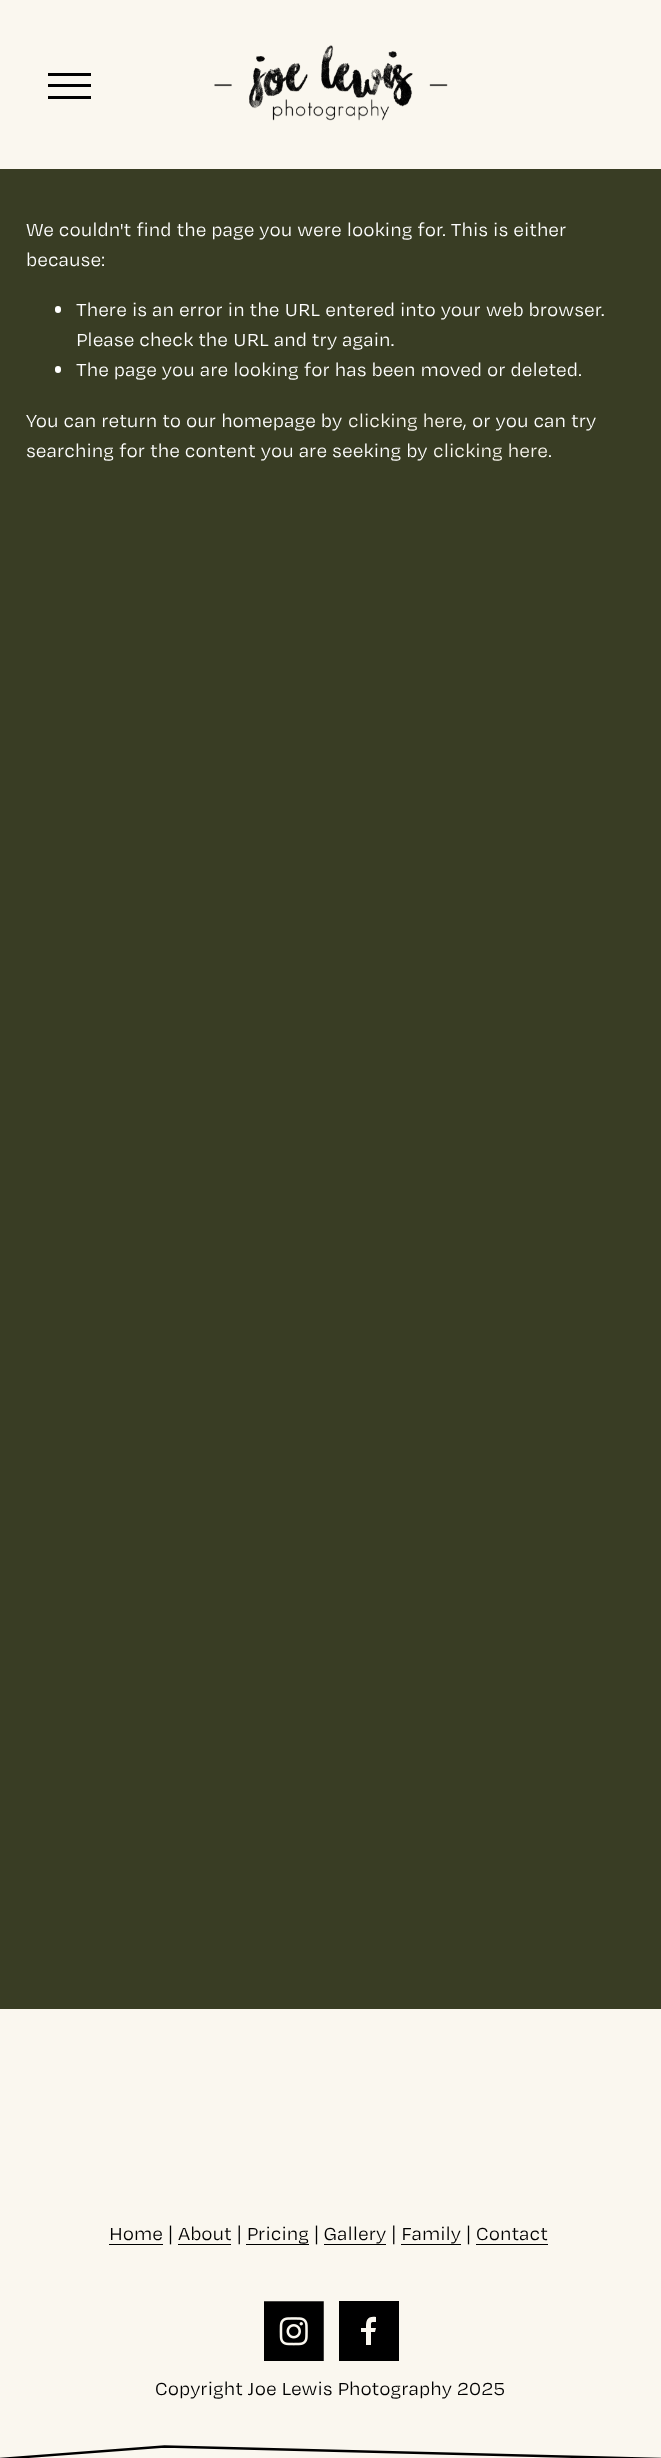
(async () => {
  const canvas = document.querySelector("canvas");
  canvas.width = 661;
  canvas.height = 2458;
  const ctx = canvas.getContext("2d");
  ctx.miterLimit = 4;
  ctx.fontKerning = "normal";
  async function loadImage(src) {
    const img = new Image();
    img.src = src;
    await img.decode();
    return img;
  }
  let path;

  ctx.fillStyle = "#393d24";
  ctx.fillRect(0, 0, 661, 2458);
  for (const [x, y, w, h, color] of [
    [0, 0, 661, 169, "#faf7ef"],
    [48, 73, 43, 3, "#000000"],
    [48, 84, 43, 3, "#000000"],
    [48, 96, 43, 3, "#000000"],
  ]) {
    ctx.fillStyle = color;
    ctx.fillRect(x, y, w, h);
  }
  ctx.drawImage(await loadImage("img/1.png"), 214, 45, 234, 76);
  ctx.fillStyle = "#ffffff";
  ctx.beginPath();
  ctx.roundRect(55, 306, 6, 7, 3);
  ctx.fill();
  ctx.beginPath();
  ctx.roundRect(55, 366, 6, 7, 3);
  ctx.fill();
  for (const [x, y, w, h, color] of [
    [0, 2009, 661, 449, "#faf7ef"],
    [109, 2244, 54, 1, "#000000"],
    [178, 2244, 53, 1, "#000000"],
    [246, 2244, 63, 1, "#000000"],
    [324, 2244, 62, 1, "#000000"],
    [401, 2244, 60, 1, "#000000"],
    [476, 2244, 72, 1, "#000000"],
  ]) {
    ctx.fillStyle = color;
    ctx.fillRect(x, y, w, h);
  }
  ctx.drawImage(await loadImage("img/2.png"), 264, 2301, 60, 60);
  path = new Path2D("M339 2301V2361H399V2301ZM376 2322C370 2322 371 2322 371 2328H376L375 2332H371V2345H366V2332H361V2328H366C366 2320 367 2316 376 2317Z");
  ctx.fill(path);
  path = new Path2D("M-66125 2234V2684M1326.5 2446.5V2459L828.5 2446.5L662.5 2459L164.5 2446.5L-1.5 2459L-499 2446.5L-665 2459");
  ctx.strokeStyle = "#000000";
  ctx.lineWidth = 2.5;
  ctx.lineCap = "square";
  ctx.stroke(path);
  ctx.font = "20.1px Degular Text";
  ctx.fillStyle = "#ffffff";
  for (const [text, x, y] of [
    ["We couldn't find the page you were looking for. This is either", 26, 236],
    ["because:", 26, 266],
    ["There is an error in the URL entered into your web browser.", 76, 316],
    ["Please check the URL and try again.", 76, 346],
    ["The page you are looking for has been moved or deleted.", 76, 376],
    ["You can return to our homepage by", 26, 427],
  ]) {
    ctx.fillText(text, x, y);
  }
  ctx.fillStyle = "#faf7ef";
  ctx.fillText("clicking here", 348, 427);
  ctx.fillStyle = "#ffffff";
  ctx.fillText(", or you can try", 463, 427);
  ctx.fillText("searching for the content you are seeking by", 26, 457);
  ctx.fillStyle = "#faf7ef";
  ctx.fillText("clicking here", 433, 457);
  ctx.fillStyle = "#ffffff";
  ctx.fillText(".", 548, 457);
  ctx.fillStyle = "#000000";
  ctx.fillText("Home | About | Pricing | Gallery | Family | Contact", 109, 2240);
  ctx.fillText("Copyright Joe Lewis Photography 2025", 155, 2395);
})();
